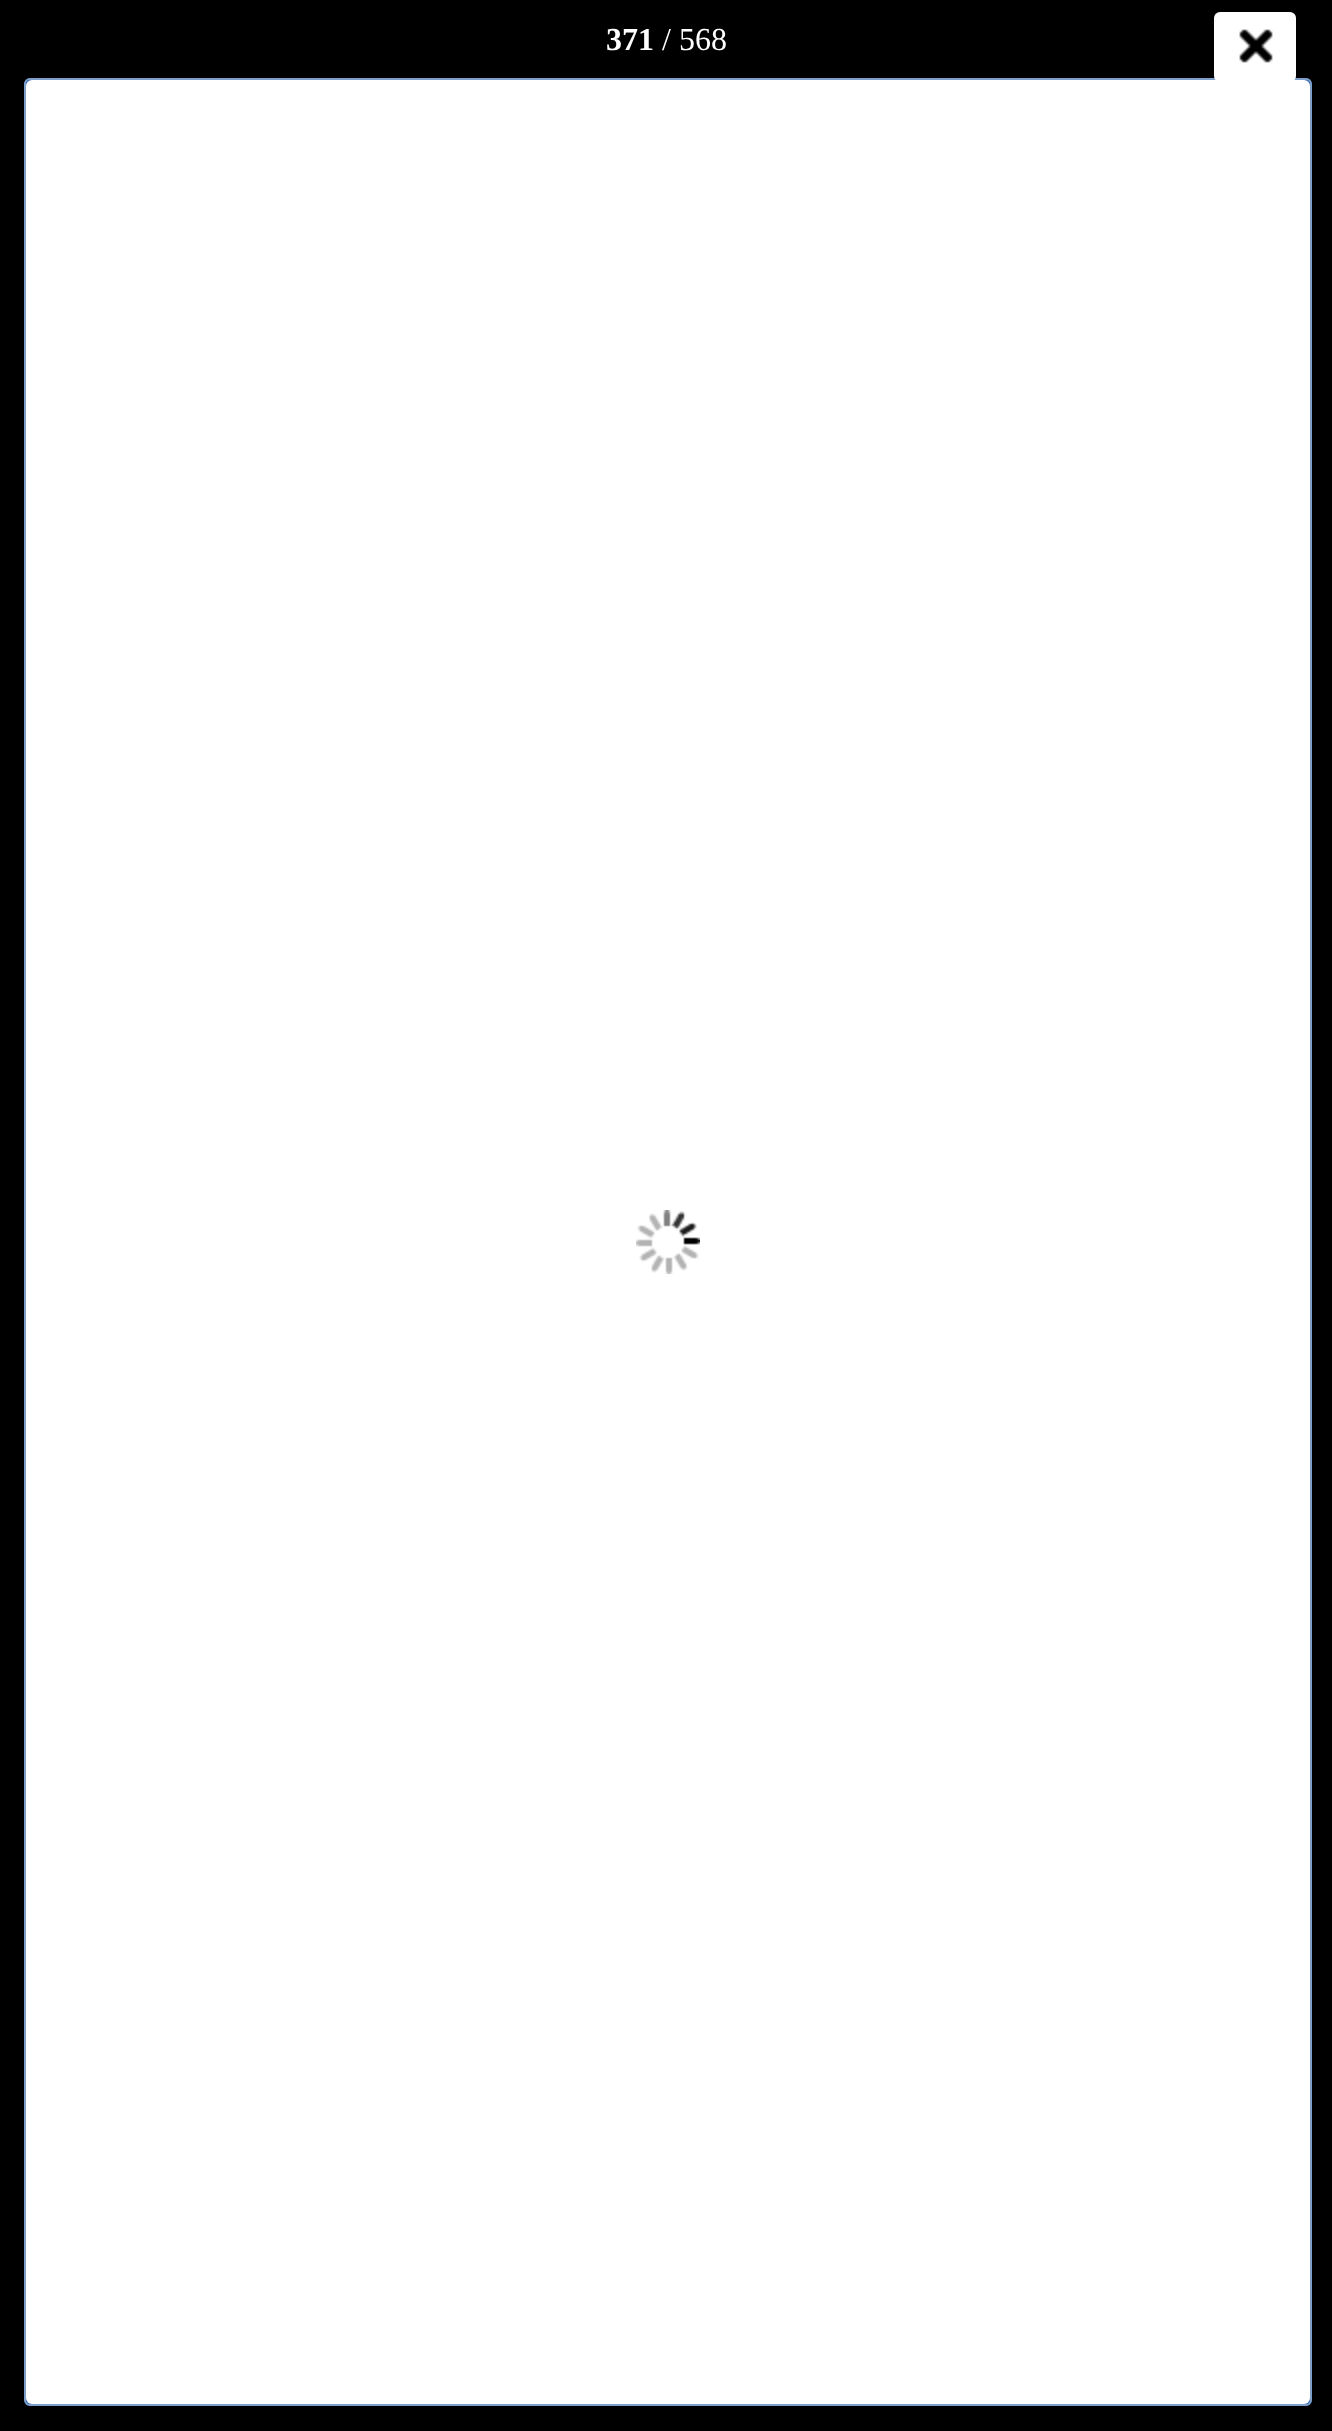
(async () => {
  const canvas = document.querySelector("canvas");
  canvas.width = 1332;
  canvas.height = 2431;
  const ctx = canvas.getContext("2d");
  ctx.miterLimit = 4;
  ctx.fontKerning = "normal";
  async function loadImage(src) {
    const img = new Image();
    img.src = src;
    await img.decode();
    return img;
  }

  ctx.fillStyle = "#000000";
  ctx.fillRect(0, 0, 1332, 2431);
  ctx.fillStyle = "#275fa7";
  ctx.beginPath();
  ctx.roundRect(24, 78, 1288, 2328, 6);
  ctx.fill();
  ctx.beginPath();
  ctx.roundRect(25, 79, 1286, 2326, 5);
  ctx.strokeStyle = "rgba(255, 255, 255, 0.4)";
  ctx.lineWidth = 2;
  ctx.stroke();
  ctx.fillStyle = "#ffffff";
  ctx.beginPath();
  ctx.roundRect(26, 80, 1284, 2324, 6);
  ctx.fill();
  ctx.beginPath();
  ctx.roundRect(1214, 12, 82, 70, 6);
  ctx.fill();
  ctx.drawImage(await loadImage("img/1.png"), 1239, 29, 34, 34);
  ctx.drawImage(await loadImage("img/2.png"), 636, 1210, 64, 64);
  ctx.font = "bold 32px Liberation Serif";
  ctx.fillText("371", 606, 50);
  ctx.font = "32px Liberation Serif";
  ctx.fillText("/ 568", 662, 50);
})();
